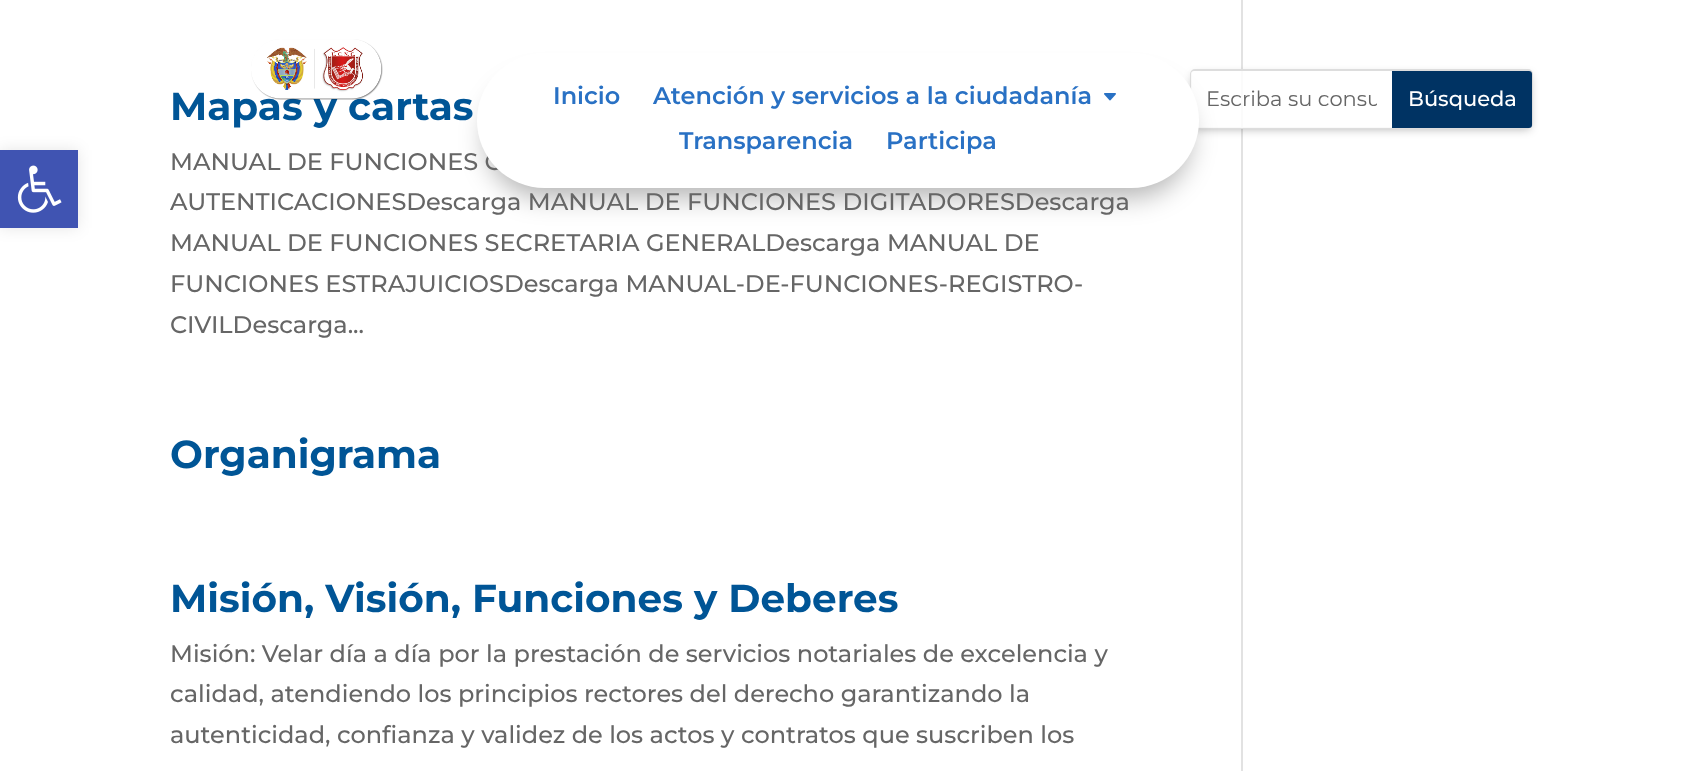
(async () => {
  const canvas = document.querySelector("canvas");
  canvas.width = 1695;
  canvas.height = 771;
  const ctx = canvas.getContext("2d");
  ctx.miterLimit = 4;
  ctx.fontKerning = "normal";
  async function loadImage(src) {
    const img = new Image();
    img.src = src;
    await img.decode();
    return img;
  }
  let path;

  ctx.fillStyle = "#ffffff";
  ctx.fillRect(0, 0, 1695, 771);
  ctx.fillStyle = "rgba(0, 0, 0, 0.1)";
  ctx.filter = "blur(7.5px)";
  ctx.beginPath();
  ctx.rect(0, 150, 78, 78);
  ctx.fill();
  ctx.filter = "none";
  ctx.fillStyle = "#4054b2";
  ctx.fillRect(0, 150, 78, 78);
  ctx.drawImage(await loadImage("img/1.png"), 17, 165, 45, 48);
  ctx.fillStyle = "#e2e2e2";
  ctx.fillRect(1241, 0, 2, 771);
  ctx.save();
  path = new Path2D("M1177 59H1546V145H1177ZM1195 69H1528C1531 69 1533 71 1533 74V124C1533 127 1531 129 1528 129H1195C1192 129 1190 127 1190 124V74C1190 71 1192 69 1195 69Z");
  ctx.clip(path, "evenodd");
  ctx.fillStyle = "rgba(0, 0, 0, 0.3)";
  ctx.filter = "blur(5px)";
  ctx.beginPath();
  ctx.roundRect(1193, 75, 337, 54, 1.5);
  ctx.fill();
  ctx.filter = "none";
  ctx.restore();
  ctx.beginPath();
  ctx.roundRect(1191, 70, 341, 58, 4);
  ctx.strokeStyle = "#dddddd";
  ctx.lineWidth = 2;
  ctx.stroke();
  ctx.fillStyle = "rgba(255, 255, 255, 0.84)";
  ctx.beginPath();
  ctx.roundRect(1191, 71, 341, 57, 3);
  ctx.fill();
  ctx.fillStyle = "rgba(0, 0, 0, 0.3)";
  ctx.filter = "blur(13.5px)";
  ctx.beginPath();
  ctx.roundRect(486, 80, 704, 117, 58.5);
  ctx.fill();
  ctx.filter = "none";
  ctx.fillStyle = "#003363";
  ctx.beginPath();
  ctx.roundRect(1392, 71, 140, 57, [0, 3, 3, 0]);
  ctx.fill();
  ctx.save();
  ctx.beginPath();
  ctx.rect(1206, 86, 171, 27);
  ctx.clip();
  ctx.font = "100 21px 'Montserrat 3'";
  ctx.fillStyle = "#666666";
  ctx.fillText("Escriba su consu", 1206, 106);
  ctx.restore();
  ctx.font = "100 21px 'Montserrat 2'";
  ctx.fillStyle = "#ffffff";
  ctx.fillText("Búsqueda", 1408, 106);
  ctx.font = "100 39px Montserrat";
  ctx.fillStyle = "#005596";
  ctx.fillText("Mapas y cartas", 170, 120);
  ctx.drawImage(await loadImage("img/2.png"), 251, 39, 132, 61);
  ctx.font = "100 24px 'Montserrat 2'";
  ctx.fillStyle = "#666666";
  ctx.fillText("MANUAL DE FUNCIONES C", 170, 170);
  ctx.fillStyle = "#ffffff";
  ctx.beginPath();
  ctx.roundRect(477, 53, 722, 135, 67.5);
  ctx.fill();
  ctx.font = "100 24px 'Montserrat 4'";
  ctx.fillStyle = "#2971c4";
  ctx.fillText("Participa", 886, 149);
  ctx.fillText("Transparencia", 679, 149);
  ctx.drawImage(await loadImage("img/3.png"), 1104, 93, 12, 8);
  ctx.fillText("Atención y servicios a la ciudadanía", 653, 104);
  ctx.fillText("Inicio", 553, 104);
  ctx.font = "100 24px 'Montserrat 2'";
  ctx.fillStyle = "#666666";
  for (const [text, x, y] of [
    ["AUTENTICACIONESDescarga MANUAL DE FUNCIONES DIGITADORESDescarga", 170, 210],
    ["MANUAL DE FUNCIONES SECRETARIA GENERALDescarga MANUAL DE", 170, 251],
    ["FUNCIONES ESTRAJUICIOSDescarga MANUAL-DE-FUNCIONES-REGISTRO-", 170, 292],
    ["CIVILDescarga...", 170, 333],
  ]) {
    ctx.fillText(text, x, y);
  }
  ctx.font = "100 39px Montserrat";
  ctx.fillStyle = "#005596";
  ctx.fillText("Organigrama", 170, 468);
  ctx.fillText("Misión, Visión, Funciones y Deberes", 170, 612);
  ctx.font = "100 24px 'Montserrat 2'";
  ctx.fillStyle = "#666666";
  for (const [text, x, y] of [
    ["Misión: Velar día a día por la prestación de servicios notariales de excelencia y", 170, 662],
    ["calidad, atendiendo los principios rectores del derecho garantizando la", 170, 702],
    ["autenticidad, confianza y validez de los actos y contratos que suscriben los", 170, 743],
  ]) {
    ctx.fillText(text, x, y);
  }
})();
